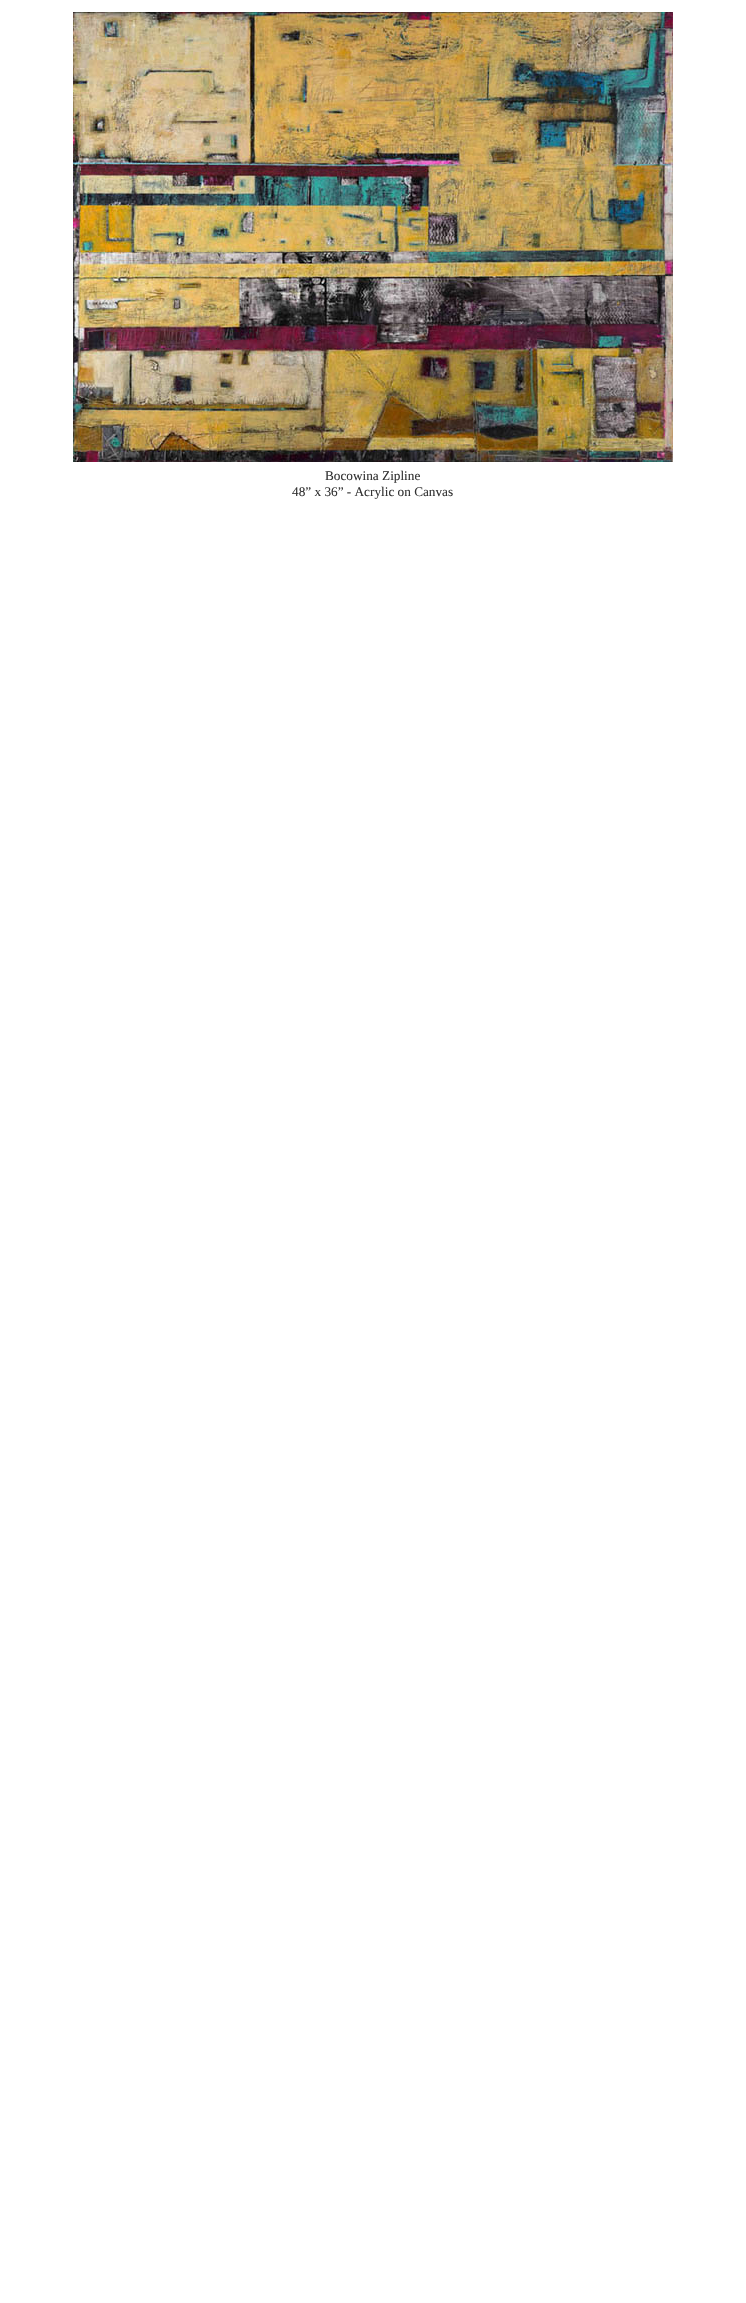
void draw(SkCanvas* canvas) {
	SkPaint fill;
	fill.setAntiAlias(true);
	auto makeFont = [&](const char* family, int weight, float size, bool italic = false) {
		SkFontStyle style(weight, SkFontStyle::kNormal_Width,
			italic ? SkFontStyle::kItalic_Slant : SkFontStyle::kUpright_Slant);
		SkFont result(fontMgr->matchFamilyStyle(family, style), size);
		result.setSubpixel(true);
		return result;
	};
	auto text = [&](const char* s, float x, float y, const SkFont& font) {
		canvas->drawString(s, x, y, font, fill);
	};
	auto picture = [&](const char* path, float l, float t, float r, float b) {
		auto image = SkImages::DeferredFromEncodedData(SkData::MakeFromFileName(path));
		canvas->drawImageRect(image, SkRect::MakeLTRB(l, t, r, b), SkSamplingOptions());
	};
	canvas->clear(0xFFFFFFFF);
	picture("image0.png", 73, 12, 673, 462);
	auto font1 = makeFont("Liberation Serif", 400, 13.25f);
	fill.setColor(0xFF333333);
	text("Bocowina Zipline", 325, 480, font1);
	text("48” x 36” - Acrylic on Canvas", 292, 496, font1);
}
